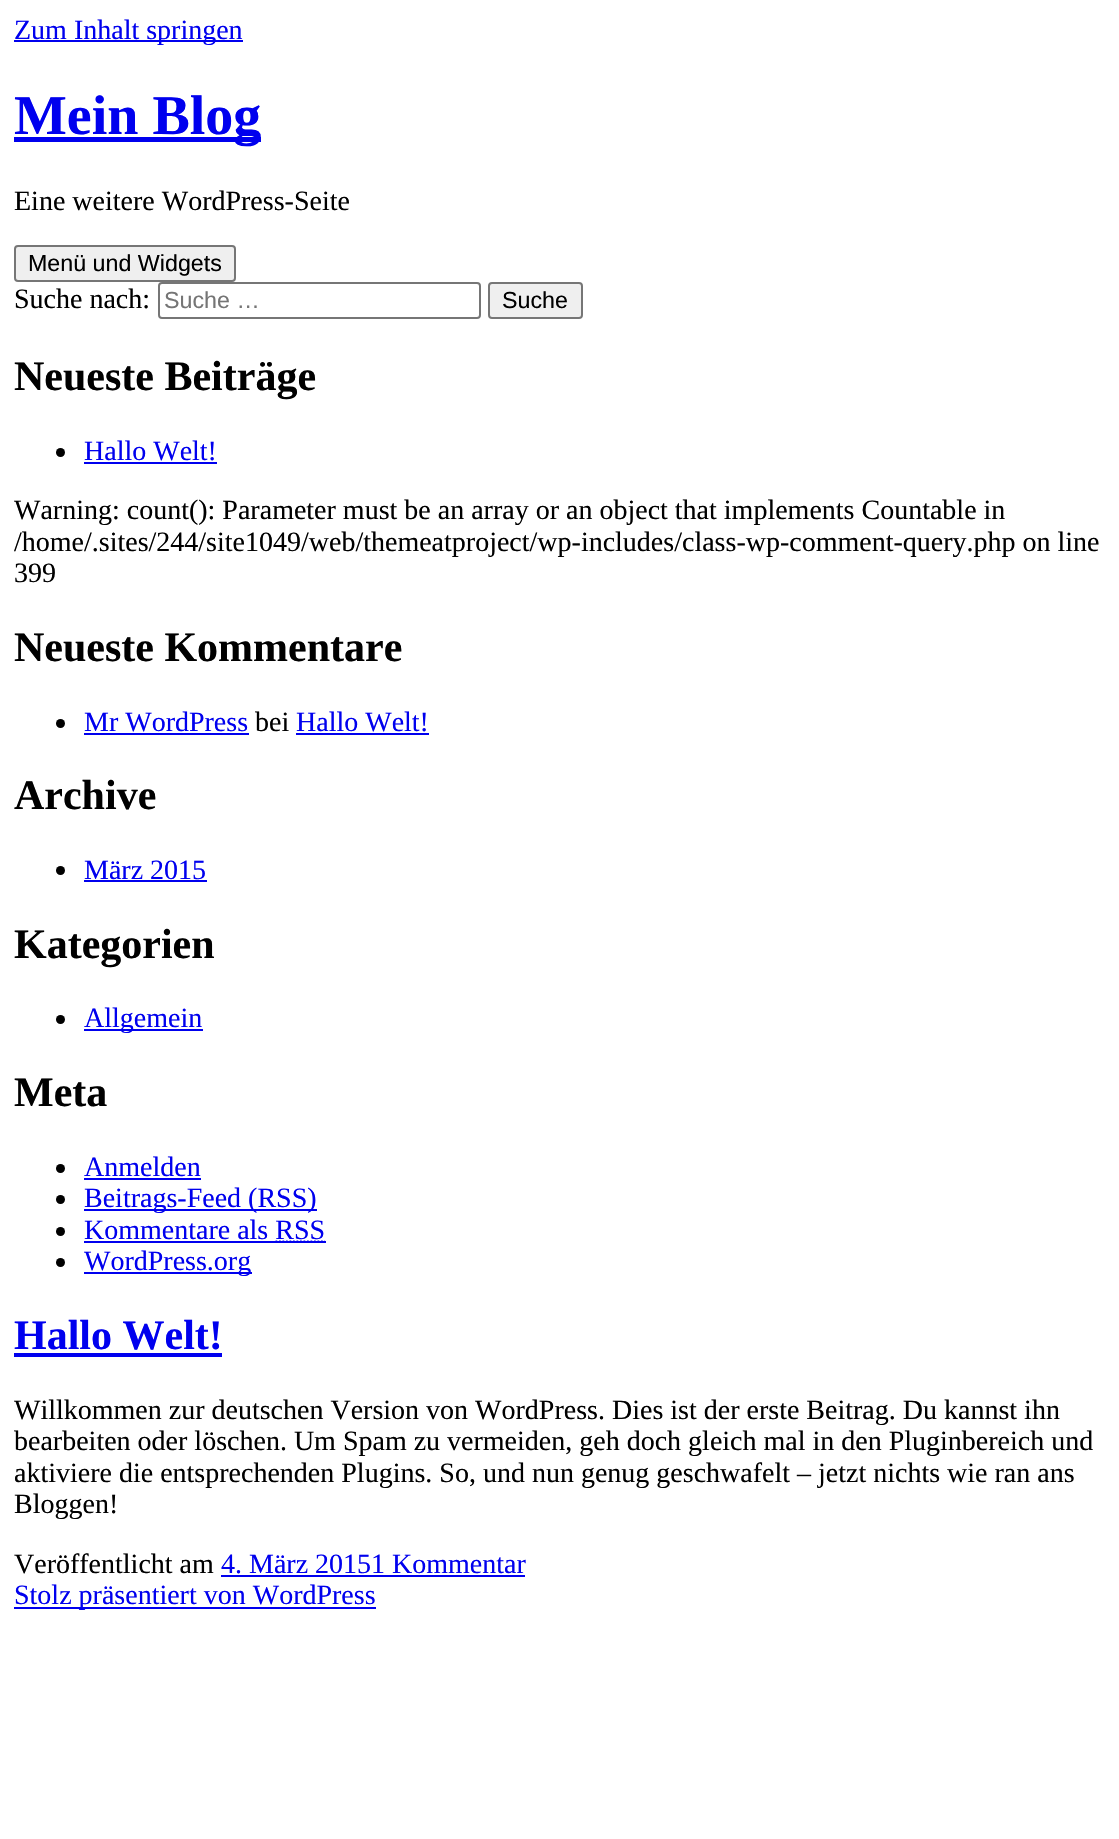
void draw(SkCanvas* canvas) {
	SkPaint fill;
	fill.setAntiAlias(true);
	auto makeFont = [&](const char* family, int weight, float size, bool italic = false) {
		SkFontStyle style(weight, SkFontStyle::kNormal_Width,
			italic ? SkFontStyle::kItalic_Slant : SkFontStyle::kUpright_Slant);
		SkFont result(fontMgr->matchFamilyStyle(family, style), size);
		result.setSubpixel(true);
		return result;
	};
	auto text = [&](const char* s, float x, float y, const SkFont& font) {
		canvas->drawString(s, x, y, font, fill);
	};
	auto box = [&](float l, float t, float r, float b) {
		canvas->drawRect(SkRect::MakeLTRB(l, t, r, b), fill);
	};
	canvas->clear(0xFFFFFFFF);
	fill.setColor(0xFF0000EE);
	box(14, 40, 243, 42);
	box(14, 137, 261, 142);
	fill.setColor(0xFFEFEFEF);
	canvas->drawRoundRect(SkRect::MakeLTRB(15, 246, 235, 281), 3, 3, fill);
	fill.setStyle(SkPaint::kStroke_Style);
	fill.setStrokeWidth(2);
	fill.setColor(0xFF767676);
	canvas->drawRoundRect(SkRect::MakeLTRB(15, 246, 235, 281), 3, 3, fill);
	canvas->drawRoundRect(SkRect::MakeLTRB(159, 283, 480, 318), 3, 3, fill);
	fill.setStyle(SkPaint::kFill_Style);
	fill.setColor(0xFFEFEFEF);
	canvas->drawRoundRect(SkRect::MakeLTRB(489, 283, 582, 318), 3, 3, fill);
	fill.setStyle(SkPaint::kStroke_Style);
	fill.setColor(0xFF767676);
	canvas->drawRoundRect(SkRect::MakeLTRB(489, 283, 582, 318), 3, 3, fill);
	fill.setStyle(SkPaint::kFill_Style);
	fill.setColor(0xFF000000);
	canvas->drawCircle(60.5f, 452.5f, 4.5f, fill);
	fill.setColor(0xFF0000EE);
	box(84, 462, 217, 464);
	fill.setColor(0xFF000000);
	canvas->drawCircle(60.5f, 723.5f, 4.5f, fill);
	fill.setColor(0xFF0000EE);
	box(84, 733, 249, 735);
	box(296, 733, 429, 735);
	fill.setColor(0xFF000000);
	canvas->drawCircle(60.5f, 870.5f, 4.5f, fill);
	fill.setColor(0xFF0000EE);
	box(84, 880, 207, 882);
	fill.setColor(0xFF000000);
	canvas->drawCircle(60.5f, 1019.5f, 4.5f, fill);
	fill.setColor(0xFF0000EE);
	box(84, 1029, 203, 1031);
	fill.setColor(0xFF000000);
	canvas->drawCircle(60.5f, 1168.5f, 4.5f, fill);
	fill.setColor(0xFF0000EE);
	box(84, 1178, 201, 1180);
	fill.setColor(0xFF000000);
	canvas->drawCircle(60.5f, 1199.5f, 4.5f, fill);
	fill.setColor(0xFF0000EE);
	box(84, 1209, 317, 1211);
	fill.setColor(0xFF000000);
	canvas->drawCircle(60.5f, 1231.5f, 4.5f, fill);
	fill.setColor(0xFF0000EE);
	box(84, 1241, 275, 1243);
	fill.setStyle(SkPaint::kStroke_Style);
	fill.setStrokeWidth(1.8f);
	fill.setPathEffect(SkDashPathEffect::Make({{1.75f, 1.75f}}, 0));
	canvas->drawPath(SkPathBuilder().moveTo(275.5f, 1241.5f).lineTo(325, 1241.5f).detach(), fill);
	fill.setPathEffect(nullptr);
	fill.setStyle(SkPaint::kFill_Style);
	box(275, 1241, 326, 1243);
	fill.setColor(0xFF000000);
	canvas->drawCircle(60.5f, 1262.5f, 4.5f, fill);
	fill.setColor(0xFF0000EE);
	box(84, 1272, 252, 1274);
	box(14, 1353, 222, 1357);
	box(221, 1575, 525, 1577);
	box(14, 1607, 376, 1609);
	auto font1 = makeFont("Liberation Serif", 400, 28);
	text("Zum Inhalt springen", 14, 39, font1);
	auto font2 = makeFont("Liberation Serif", 700, 56);
	text("Mein Blog", 14, 134, font2);
	fill.setColor(0xFF000000);
	text("Eine weitere WordPress-Seite", 14, 210, font1);
	auto font3 = makeFont("Liberation Sans", 400, 23.25f);
	text("Menü und Widgets", 28, 271, font3);
	text("Suche nach:", 14, 308, font1);
	fill.setColor(0xFF757575);
	text("Suche …", 164, 308, font3);
	fill.setColor(0xFF000000);
	text("Suche", 502, 308, font3);
	auto font4 = makeFont("Liberation Serif", 700, 42);
	text("Neueste Beiträge", 14, 390, font4);
	fill.setColor(0xFF0000EE);
	text("Hallo Welt!", 84, 460, font1);
	fill.setColor(0xFF000000);
	text("Warning: count(): Parameter must be an array or an object that implements Countable in", 14, 519, font1);
	text("/home/.sites/244/site1049/web/themeatproject/wp-includes/class-wp-comment-query.php on line", 14, 551, font1);
	text("399", 14, 582, font1);
	text("Neueste Kommentare", 14, 661, font4);
	fill.setColor(0xFF0000EE);
	text("Mr WordPress", 84, 731, font1);
	fill.setColor(0xFF000000);
	text("bei", 255, 731, font1);
	fill.setColor(0xFF0000EE);
	text("Hallo Welt!", 296, 731, font1);
	fill.setColor(0xFF000000);
	text("Archive", 14, 809, font4);
	fill.setColor(0xFF0000EE);
	text("März 2015", 84, 879, font1);
	fill.setColor(0xFF000000);
	text("Kategorien", 14, 958, font4);
	fill.setColor(0xFF0000EE);
	text("Allgemein", 84, 1027, font1);
	fill.setColor(0xFF000000);
	text("Meta", 14, 1106, font4);
	fill.setColor(0xFF0000EE);
	text("Anmelden", 84, 1176, font1);
	text("Beitrags-Feed (RSS)", 84, 1207, font1);
	text("Kommentare als RSS", 84, 1239, font1);
	text("WordPress.org", 84, 1270, font1);
	text("Hallo Welt!", 14, 1349, font4);
	fill.setColor(0xFF000000);
	text("Willkommen zur deutschen Version von WordPress. Dies ist der erste Beitrag. Du kannst ihn", 14, 1419, font1);
	text("bearbeiten oder löschen. Um Spam zu vermeiden, geh doch gleich mal in den Pluginbereich und", 14, 1450, font1);
	text("aktiviere die entsprechenden Plugins. So, und nun genug geschwafelt – jetzt nichts wie ran ans", 14, 1482, font1);
	text("Bloggen!", 14, 1513, font1);
	text("Veröffentlicht am", 14, 1573, font1);
	fill.setColor(0xFF0000EE);
	text("4. März 20151 Kommentar", 221, 1573, font1);
	text("Stolz präsentiert von WordPress", 14, 1604, font1);
}
